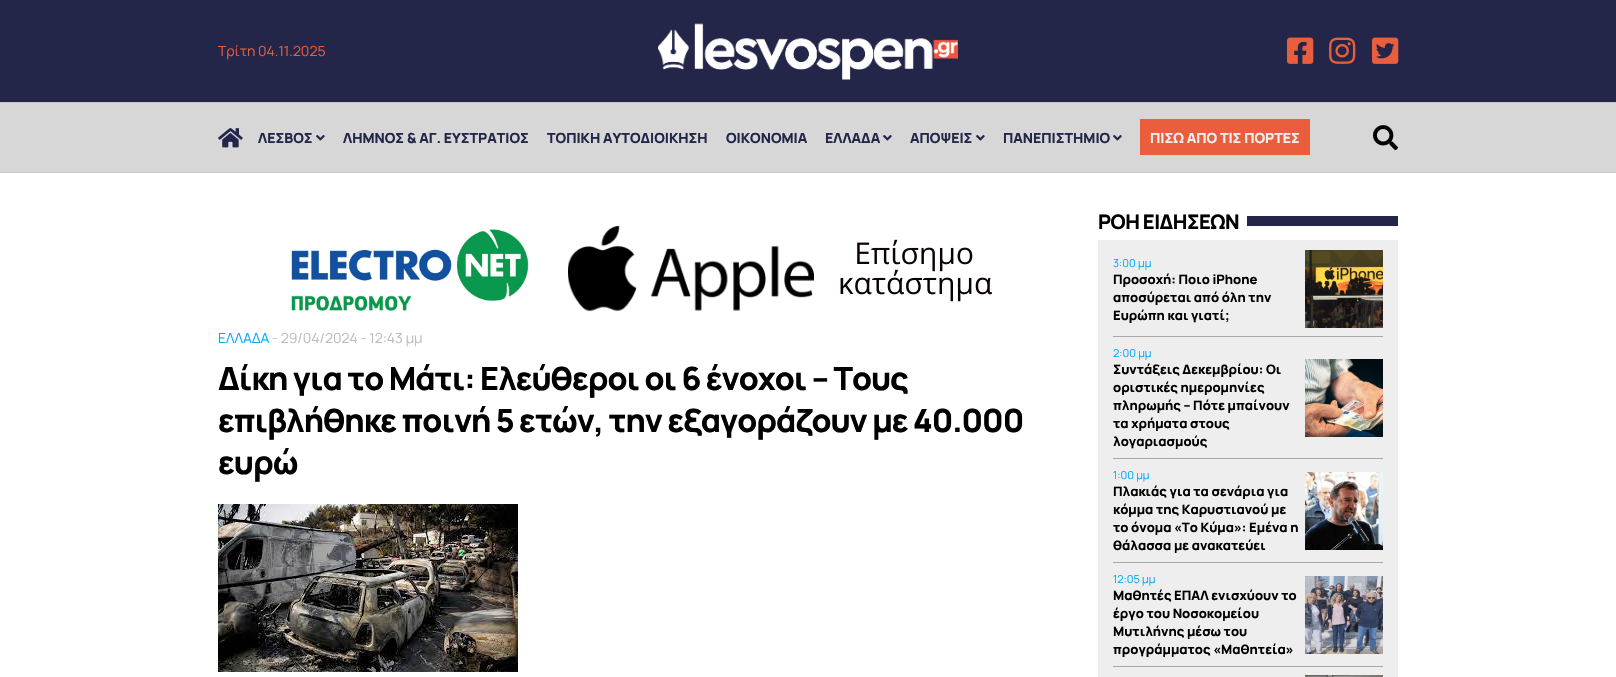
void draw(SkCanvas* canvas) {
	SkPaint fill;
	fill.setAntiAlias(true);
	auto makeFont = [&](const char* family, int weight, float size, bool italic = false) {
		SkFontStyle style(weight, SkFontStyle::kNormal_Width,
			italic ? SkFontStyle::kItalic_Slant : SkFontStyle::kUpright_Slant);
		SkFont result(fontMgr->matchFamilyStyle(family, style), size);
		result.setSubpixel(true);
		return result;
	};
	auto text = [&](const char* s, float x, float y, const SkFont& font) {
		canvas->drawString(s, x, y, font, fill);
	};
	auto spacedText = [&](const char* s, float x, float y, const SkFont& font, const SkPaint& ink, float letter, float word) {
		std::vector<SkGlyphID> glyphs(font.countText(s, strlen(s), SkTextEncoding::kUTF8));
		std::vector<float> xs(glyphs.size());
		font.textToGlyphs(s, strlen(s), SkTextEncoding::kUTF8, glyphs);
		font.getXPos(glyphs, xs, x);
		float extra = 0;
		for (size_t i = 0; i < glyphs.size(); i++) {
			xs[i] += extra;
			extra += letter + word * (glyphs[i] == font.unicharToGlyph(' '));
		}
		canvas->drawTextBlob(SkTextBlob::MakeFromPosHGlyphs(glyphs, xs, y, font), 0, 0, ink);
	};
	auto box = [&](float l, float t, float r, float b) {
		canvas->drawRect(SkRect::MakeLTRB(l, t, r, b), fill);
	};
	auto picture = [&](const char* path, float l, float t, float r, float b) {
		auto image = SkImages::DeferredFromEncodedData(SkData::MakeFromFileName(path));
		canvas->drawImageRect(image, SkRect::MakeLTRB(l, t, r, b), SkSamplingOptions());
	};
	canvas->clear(0xFFFFFFFF);
	fill.setColor(0xFF232649);
	box(0, 0, 1616, 102);
	picture("image0.png", 658, 23, 958, 80);
	picture("image1.png", 1287, 37, 1314, 64);
	picture("image2.png", 1329, 37, 1356, 64);
	picture("image3.png", 1372, 37, 1399, 64);
	fill.setColor(0xFFD7D7D7);
	box(0, 103, 1616, 172);
	fill.setColor(0xFFC6C6C6);
	box(0, 102, 1616, 103);
	box(0, 172, 1616, 173);
	picture("image4.png", 218, 128, 243, 148);
	picture("image5.png", 316, 135, 325, 141);
	picture("image5.png", 883, 135, 892, 141);
	picture("image5.png", 976, 135, 985, 141);
	picture("image5.png", 1113, 135, 1122, 141);
	fill.setColor(0xFFEA5D3D);
	box(1140, 119, 1310, 155);
	picture("image6.png", 1373, 125, 1398, 151);
	picture("image7.png", 289, 226, 992, 312);
	picture("image8.png", 218, 504, 518, 672);
	fill.setColor(0xFF232649);
	box(1247, 216, 1398, 226);
	fill.setColor(0xFFEEEEEE);
	box(1098, 240, 1398, 677);
	fill.setColor(0xFFA8A8A8);
	box(1113, 336, 1383, 337);
	picture("image9.png", 1305, 250, 1383, 328);
	box(1113, 458, 1383, 459);
	picture("image10.png", 1305, 359, 1383, 437);
	box(1113, 562, 1383, 563);
	picture("image11.png", 1305, 472, 1383, 550);
	box(1113, 666, 1383, 667);
	picture("image12.png", 1305, 576, 1383, 654);
	picture("image13.png", 1305, 675, 1383, 677);
	auto font1 = makeFont("Manrope", 400, 14);
	fill.setColor(0xFFEA5D3D);
	text("Τρίτη 04.11.2025", 218, 56, font1);
	auto font2 = makeFont("Manrope", 800, 14);
	fill.setColor(0xFF232649);
	text("ΛΕΣΒΟΣ", 258, 143, font2);
	text("ΛΗΜΝΟΣ & ΑΓ. ΕΥΣΤΡΑΤΙΟΣ", 343, 143, font2);
	text("ΤΟΠΙΚΗ ΑΥΤΟΔΙΟΙΚΗΣΗ", 547, 143, font2);
	text("ΟΙΚΟΝΟΜΙΑ", 726, 143, font2);
	text("ΕΛΛΑΔΑ", 825, 143, font2);
	text("ΑΠΟΨΕΙΣ", 910, 143, font2);
	text("ΠΑΝΕΠΙΣΤΗΜΙΟ", 1003, 143, font2);
	fill.setColor(0xFFEFEFEF);
	text("ΠΙΣΩ ΑΠΟ ΤΙΣ ΠΟΡΤΕΣ", 1150, 143, font2);
	fill.setColor(0xFF03A9F7);
	text("ΕΛΛΑΔΑ", 218, 343, font1);
	fill.setColor(0xFFBDBDBD);
	text("- 29/04/2024 - 12:43 μμ", 272, 343, font1);
	auto font3 = makeFont("Manrope", 800, 32);
	fill.setColor(0xFF000000);
	spacedText("Δίκη για το Μάτι: Ελεύθεροι οι 6 ένοχοι – Τους", 218, 390, font3, fill, -1, 0);
	spacedText("επιβλήθηκε ποινή 5 ετών, την εξαγοράζουν με 40.000", 218, 432, font3, fill, -1, 0);
	spacedText("ευρώ", 218, 474, font3, fill, -1, 0);
	auto font4 = makeFont("Manrope", 800, 20);
	spacedText("ΡΟΗ ΕΙΔΗΣΕΩΝ", 1098, 229, font4, fill, -0.5f, 0);
	auto font5 = makeFont("Manrope", 400, 11);
	fill.setColor(0xFF03A9F7);
	text("3:00 μμ", 1113, 267, font5);
	auto font6 = makeFont("Manrope", 800, 13);
	fill.setColor(0xFF000000);
	text("Προσοχή: Ποιο iPhone", 1113, 284, font6);
	text("αποσύρεται από όλη την", 1113, 302, font6);
	text("Ευρώπη και γιατί;", 1113, 320, font6);
	fill.setColor(0xFF03A9F7);
	text("2:00 μμ", 1113, 357, font5);
	fill.setColor(0xFF000000);
	text("Συντάξεις Δεκεμβρίου: Οι", 1113, 374, font6);
	text("οριστικές ημερομηνίες", 1113, 392, font6);
	text("πληρωμής – Πότε μπαίνουν", 1113, 410, font6);
	text("τα χρήματα στους", 1113, 428, font6);
	text("λογαριασμούς", 1113, 446, font6);
	fill.setColor(0xFF03A9F7);
	text("1:00 μμ", 1113, 479, font5);
	fill.setColor(0xFF000000);
	text("Πλακιάς για τα σενάρια για", 1113, 496, font6);
	text("κόμμα της Καρυστιανού με", 1113, 514, font6);
	text("το όνομα «Το Κύμα»: Εμένα η", 1113, 532, font6);
	text("θάλασσα με ανακατεύει", 1113, 550, font6);
	fill.setColor(0xFF03A9F7);
	text("12:05 μμ", 1113, 583, font5);
	fill.setColor(0xFF000000);
	text("Μαθητές ΕΠΑΛ ενισχύουν το", 1113, 600, font6);
	text("έργο του Νοσοκομείου", 1113, 618, font6);
	text("Μυτιλήνης μέσω του", 1113, 636, font6);
	text("προγράμματος «Μαθητεία»", 1113, 654, font6);
}
